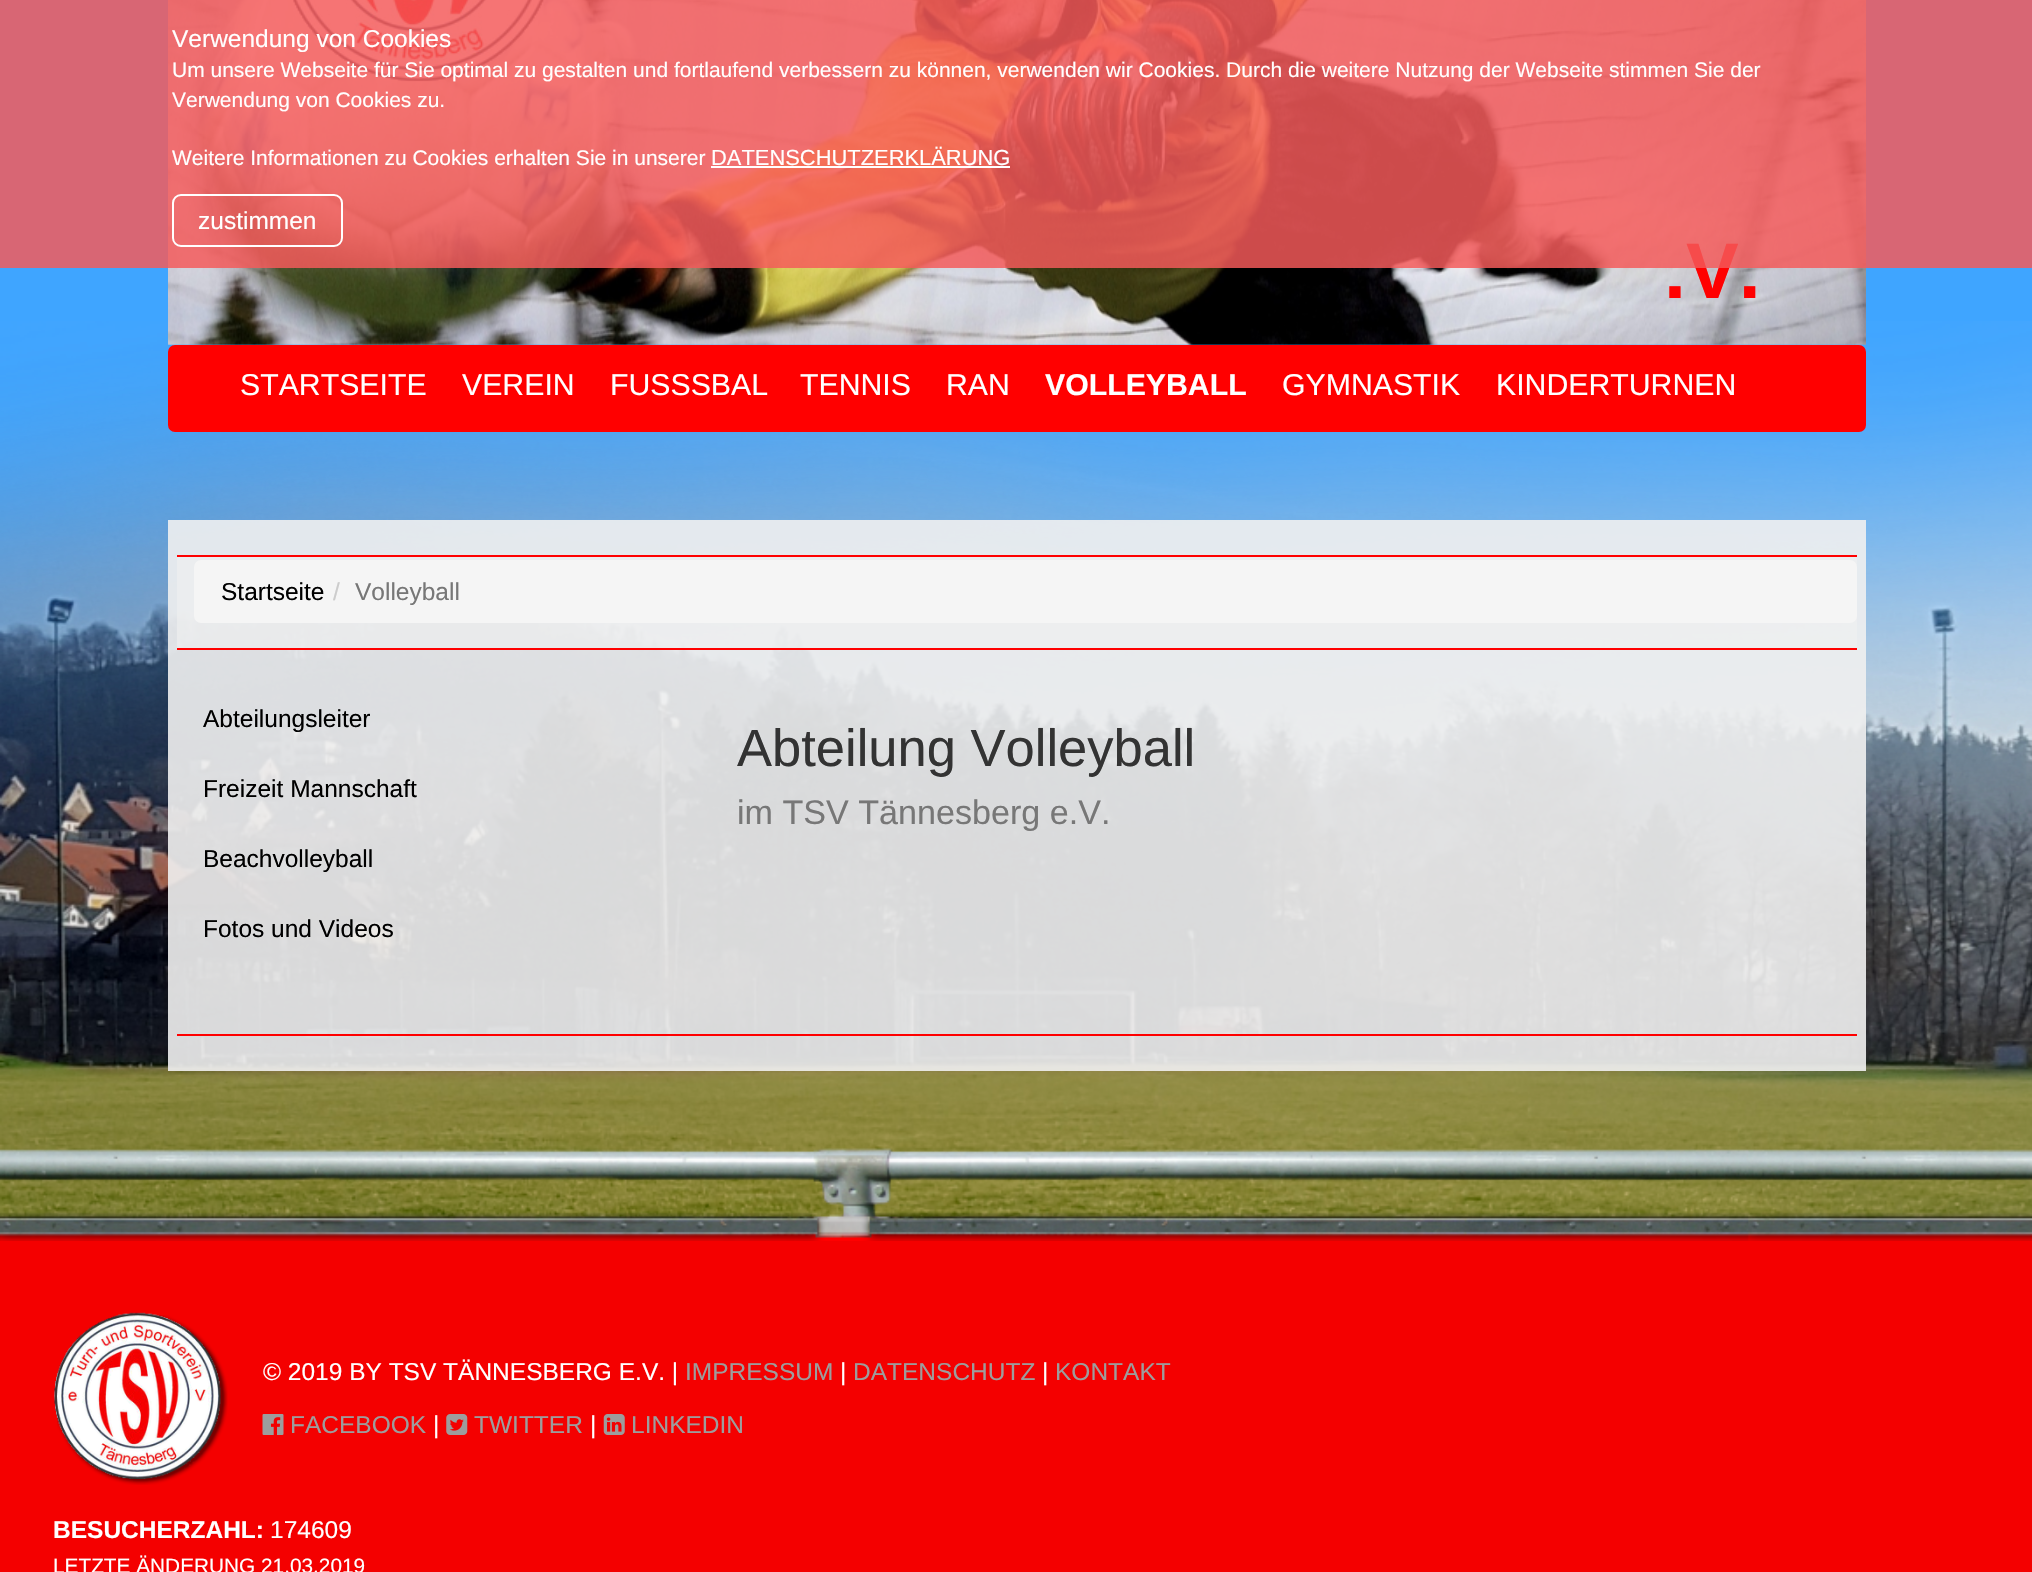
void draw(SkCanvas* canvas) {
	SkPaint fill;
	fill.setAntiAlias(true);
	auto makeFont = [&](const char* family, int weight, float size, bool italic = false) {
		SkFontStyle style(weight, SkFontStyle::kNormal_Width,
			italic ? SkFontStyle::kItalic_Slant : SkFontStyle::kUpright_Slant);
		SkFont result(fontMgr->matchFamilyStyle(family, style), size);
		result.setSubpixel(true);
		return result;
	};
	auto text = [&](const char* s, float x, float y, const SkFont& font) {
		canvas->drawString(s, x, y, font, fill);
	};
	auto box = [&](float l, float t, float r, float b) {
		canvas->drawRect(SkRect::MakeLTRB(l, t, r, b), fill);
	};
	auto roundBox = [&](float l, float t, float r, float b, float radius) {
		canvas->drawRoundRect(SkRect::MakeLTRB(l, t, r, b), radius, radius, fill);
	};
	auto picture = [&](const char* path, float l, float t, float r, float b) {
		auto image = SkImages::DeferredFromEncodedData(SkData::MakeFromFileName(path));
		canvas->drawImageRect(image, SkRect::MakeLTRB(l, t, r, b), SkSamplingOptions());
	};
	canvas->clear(0xFF3FA5FF);
	picture("image0.png", 0, 321, 2032, 1221);
	fill.setColor(0xFFFF0000);
	canvas->drawRoundRect(SkRect::MakeLTRB(169, 346, 1865, 431), 6, 6, fill);
	fill.setStyle(SkPaint::kStroke_Style);
	fill.setStrokeWidth(2);
	canvas->drawRoundRect(SkRect::MakeLTRB(169, 346, 1865, 431), 6, 6, fill);
	picture("image1.png", 168, 0, 1866, 345);
	picture("image2.png", 293, 0, 544, 82);
	fill.setStyle(SkPaint::kFill_Style);
	fill.setColor(0xE6F0F0F0);
	box(168, 520, 1866, 1071);
	fill.setColor(0x99F0F0F0);
	box(177, 557, 1857, 648);
	fill.setColor(0xFFFF0000);
	box(177, 555, 1857, 557);
	box(177, 648, 1857, 650);
	fill.setColor(0xFFF5F5F5);
	roundBox(194, 560, 1857, 623, 7);
	fill.setColor(0xFFFF0000);
	box(177, 1034, 1857, 1036);
	picture("image3.png", 0, 1148, 2032, 1241);
	fill.setColor(0xFFF40000);
	box(0, 1241, 2032, 1572);
	picture("image4.png", 54, 1312, 228, 1485);
	picture("image5.png", 262, 1414, 284, 1435);
	picture("image6.png", 446, 1414, 468, 1435);
	picture("image7.png", 603, 1414, 625, 1435);
	auto font1 = makeFont("Liberation Sans", 400, 30.25f);
	fill.setColor(0xFFFFFFFF);
	text("STARTSEITE", 240, 395, font1);
	text("VEREIN", 462, 395, font1);
	text("FUSSSBAL", 610, 395, font1);
	text("TENNIS", 800, 395, font1);
	text("RAN", 946, 395, font1);
	auto font2 = makeFont("Liberation Sans", 700, 30.25f);
	text("VOLLEYBALL", 1045, 395, font2);
	text("GYMNASTIK", 1282, 395, font1);
	text("KINDERTURNEN", 1496, 395, font1);
	auto font3 = makeFont("Liberation Sans", 700, 79);
	fill.setColor(0xFFFF0000);
	text(".V.", 1664, 298, font3);
	fill.setColor(0xD6F45959);
	box(0, 0, 2032, 268);
	fill.setStyle(SkPaint::kStroke_Style);
	fill.setColor(0xFFFFFFFF);
	canvas->drawRoundRect(SkRect::MakeLTRB(173, 195, 342, 246), 8, 8, fill);
	auto font4 = makeFont("Liberation Sans", 400, 24.5f);
	fill.setStyle(SkPaint::kFill_Style);
	text("zustimmen", 198, 229, font4);
	auto font5 = makeFont("Liberation Sans", 400, 21.9f);
	text("DATENSCHUTZERKLÄRUNG", 711, 165, font5);
	box(711, 166, 1010, 168);
	auto font6 = makeFont("Liberation Sans", 400, 21);
	text("Weitere Informationen zu Cookies erhalten Sie in unserer", 172, 165, font6);
	text("Verwendung von Cookies zu.", 172, 107, font6);
	text("Um unsere Webseite für Sie optimal zu gestalten und fortlaufend verbessern zu können, verwenden wir Cookies. Durch die weitere Nutzung der Webseite stimmen Sie der", 172, 77, font6);
	text("Verwendung von Cookies", 172, 47, font4);
	fill.setColor(0xFF000000);
	text("Startseite", 221, 600, font4);
	fill.setColor(0xFFCCCCCC);
	text("/", 333, 600, font4);
	fill.setColor(0xFF777777);
	text("Volleyball", 355, 600, font4);
	fill.setColor(0xFF000000);
	text("Abteilungsleiter", 203, 727, font4);
	text("Freizeit Mannschaft", 203, 797, font4);
	text("Beachvolleyball", 203, 867, font4);
	text("Fotos und Videos", 203, 937, font4);
	auto font7 = makeFont("Liberation Sans", 400, 52.5f);
	fill.setColor(0xFF333333);
	text("Abteilung Volleyball", 737, 766, font7);
	auto font8 = makeFont("Liberation Sans", 400, 34.1f);
	fill.setColor(0xFF777777);
	text("im TSV Tännesberg e.V.", 737, 824, font8);
	fill.setColor(0xFFFFFFFF);
	text("© 2019 BY TSV TÄNNESBERG E.V. |", 263, 1380, font4);
	fill.setColor(0xFF9D9D9D);
	text("IMPRESSUM", 685, 1380, font4);
	fill.setColor(0xFFFFFFFF);
	text("|", 840, 1380, font4);
	fill.setColor(0xFF9D9D9D);
	text("DATENSCHUTZ", 853, 1380, font4);
	fill.setColor(0xFFFFFFFF);
	text("|", 1042, 1380, font4);
	fill.setColor(0xFF9D9D9D);
	text("KONTAKT", 1055, 1380, font4);
	text("FACEBOOK", 290, 1433, font4);
	fill.setColor(0xFFFFFFFF);
	text("|", 433, 1433, font4);
	fill.setColor(0xFF9D9D9D);
	text("TWITTER", 474, 1433, font4);
	fill.setColor(0xFFFFFFFF);
	text("|", 590, 1433, font4);
	fill.setColor(0xFF9D9D9D);
	text("LINKEDIN", 631, 1433, font4);
	auto font9 = makeFont("Liberation Sans", 700, 24.5f);
	fill.setColor(0xFFFFFFFF);
	text("BESUCHERZAHL:", 53, 1538, font9);
	text("174609", 270, 1538, font4);
	auto font10 = makeFont("Liberation Sans", 400, 20.8f);
	text("LETZTE ÄNDERUNG 21.03.2019", 53, 1573, font10);
}
